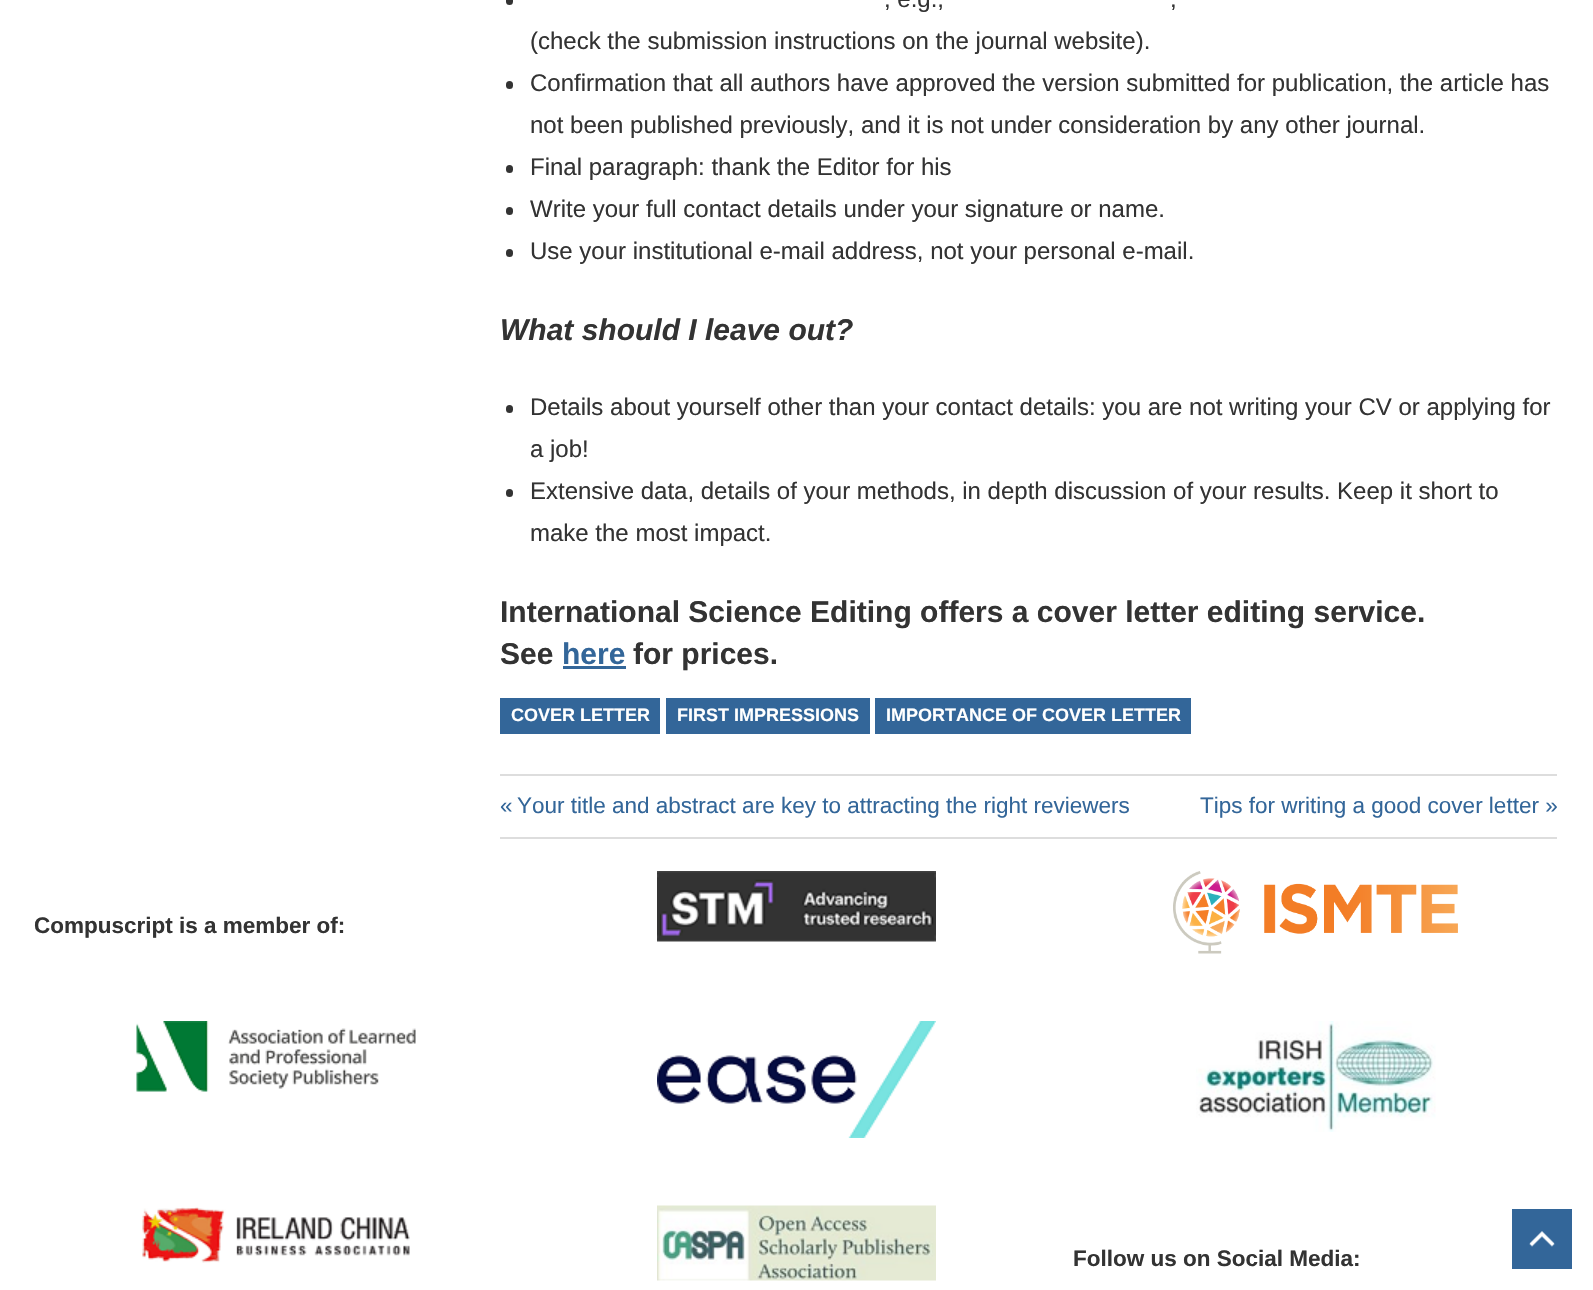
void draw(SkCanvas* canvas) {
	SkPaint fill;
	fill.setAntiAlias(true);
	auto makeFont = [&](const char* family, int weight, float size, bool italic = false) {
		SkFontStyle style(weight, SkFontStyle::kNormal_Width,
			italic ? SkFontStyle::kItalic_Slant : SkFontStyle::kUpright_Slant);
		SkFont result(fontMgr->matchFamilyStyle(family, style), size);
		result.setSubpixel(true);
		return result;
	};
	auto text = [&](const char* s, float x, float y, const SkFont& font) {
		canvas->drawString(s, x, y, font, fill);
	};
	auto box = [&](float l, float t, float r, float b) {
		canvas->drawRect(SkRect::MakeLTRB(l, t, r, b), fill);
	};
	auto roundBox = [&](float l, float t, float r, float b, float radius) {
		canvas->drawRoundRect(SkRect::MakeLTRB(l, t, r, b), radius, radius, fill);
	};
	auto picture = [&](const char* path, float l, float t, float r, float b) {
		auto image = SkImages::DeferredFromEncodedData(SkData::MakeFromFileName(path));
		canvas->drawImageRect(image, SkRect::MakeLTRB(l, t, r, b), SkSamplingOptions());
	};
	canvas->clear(0xFFFFFFFF);
	fill.setColor(0xFF333333);
	roundBox(506, -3, 513, 5, 3.5f);
	roundBox(506, 81, 513, 89, 3.5f);
	roundBox(506, 165, 513, 173, 3.5f);
	roundBox(506, 207, 513, 215, 3.5f);
	roundBox(506, 249, 513, 257, 3.5f);
	roundBox(506, 405, 513, 413, 3.5f);
	roundBox(506, 489, 513, 497, 3.5f);
	fill.setColor(0xFF336699);
	box(563, 666, 626, 669);
	box(500, 698, 660, 734);
	box(666, 698, 870, 734);
	box(875, 698, 1191, 734);
	fill.setColor(0xFFDDDDDD);
	box(500, 774, 1557, 776);
	box(500, 837, 1557, 839);
	picture("image0.png", 657, 871, 936, 942);
	picture("image1.png", 1173, 871, 1458, 954);
	picture("image2.png", 136, 1021, 416, 1092);
	picture("image3.png", 657, 1021, 936, 1138);
	picture("image4.png", 1196, 1021, 1436, 1132);
	picture("image5.png", 142, 1207, 410, 1263);
	picture("image6.png", 657, 1205, 936, 1281);
	fill.setColor(0xFF336699);
	box(1512, 1209, 1572, 1269);
	picture("image7.png", 1529, 1231, 1555, 1247);
	auto font1 = makeFont("Liberation Sans", 400, 24);
	fill.setColor(0xFF333333);
	text(", e.g.,", 884, 7, font1);
	text(",", 1170, 7, font1);
	text("(check the submission instructions on the journal website).", 530, 49, font1);
	text("Confirmation that all authors have approved the version submitted for publication, the article has", 530, 91, font1);
	text("not been published previously, and it is not under consideration by any other journal.", 530, 133, font1);
	text("Final paragraph: thank the Editor for his", 530, 175, font1);
	text("Write your full contact details under your signature or name.", 530, 217, font1);
	text("Use your institutional e-mail address, not your personal e-mail.", 530, 259, font1);
	auto font2 = makeFont("Liberation Sans", 700, 30, true);
	text("What should I leave out?", 500, 340, font2);
	text("Details about yourself other than your contact details: you are not writing your CV or applying for", 530, 415, font1);
	text("a job!", 530, 457, font1);
	text("Extensive data, details of your methods, in depth discussion of your results. Keep it short to", 530, 499, font1);
	text("make the most impact.", 530, 541, font1);
	auto font3 = makeFont("Liberation Sans", 700, 30);
	text("International Science Editing offers a cover letter editing service.", 500, 622, font3);
	text("See", 500, 664, font3);
	fill.setColor(0xFF336699);
	text("here", 562, 664, font3);
	fill.setColor(0xFF333333);
	text("for prices.", 633, 664, font3);
	auto font4 = makeFont("Liberation Sans", 700, 18);
	fill.setColor(0xFFFFFFFF);
	text("COVER LETTER", 511, 721, font4);
	text("FIRST IMPRESSIONS", 677, 721, font4);
	text("IMPORTANCE OF COVER LETTER", 886, 721, font4);
	auto font5 = makeFont("Liberation Sans", 400, 22.5f);
	fill.setColor(0xFF336699);
	text("«", 500, 813, font5);
	text("Your title and abstract are key to attracting the right reviewers", 517, 813, font5);
	text("Tips for writing a good cover letter »", 1200, 813, font5);
	auto font6 = makeFont("Liberation Sans", 700, 22.5f);
	fill.setColor(0xFF333333);
	text("Compuscript is a member of:", 34, 933, font6);
	text("Follow us on Social Media:", 1073, 1266, font6);
}
